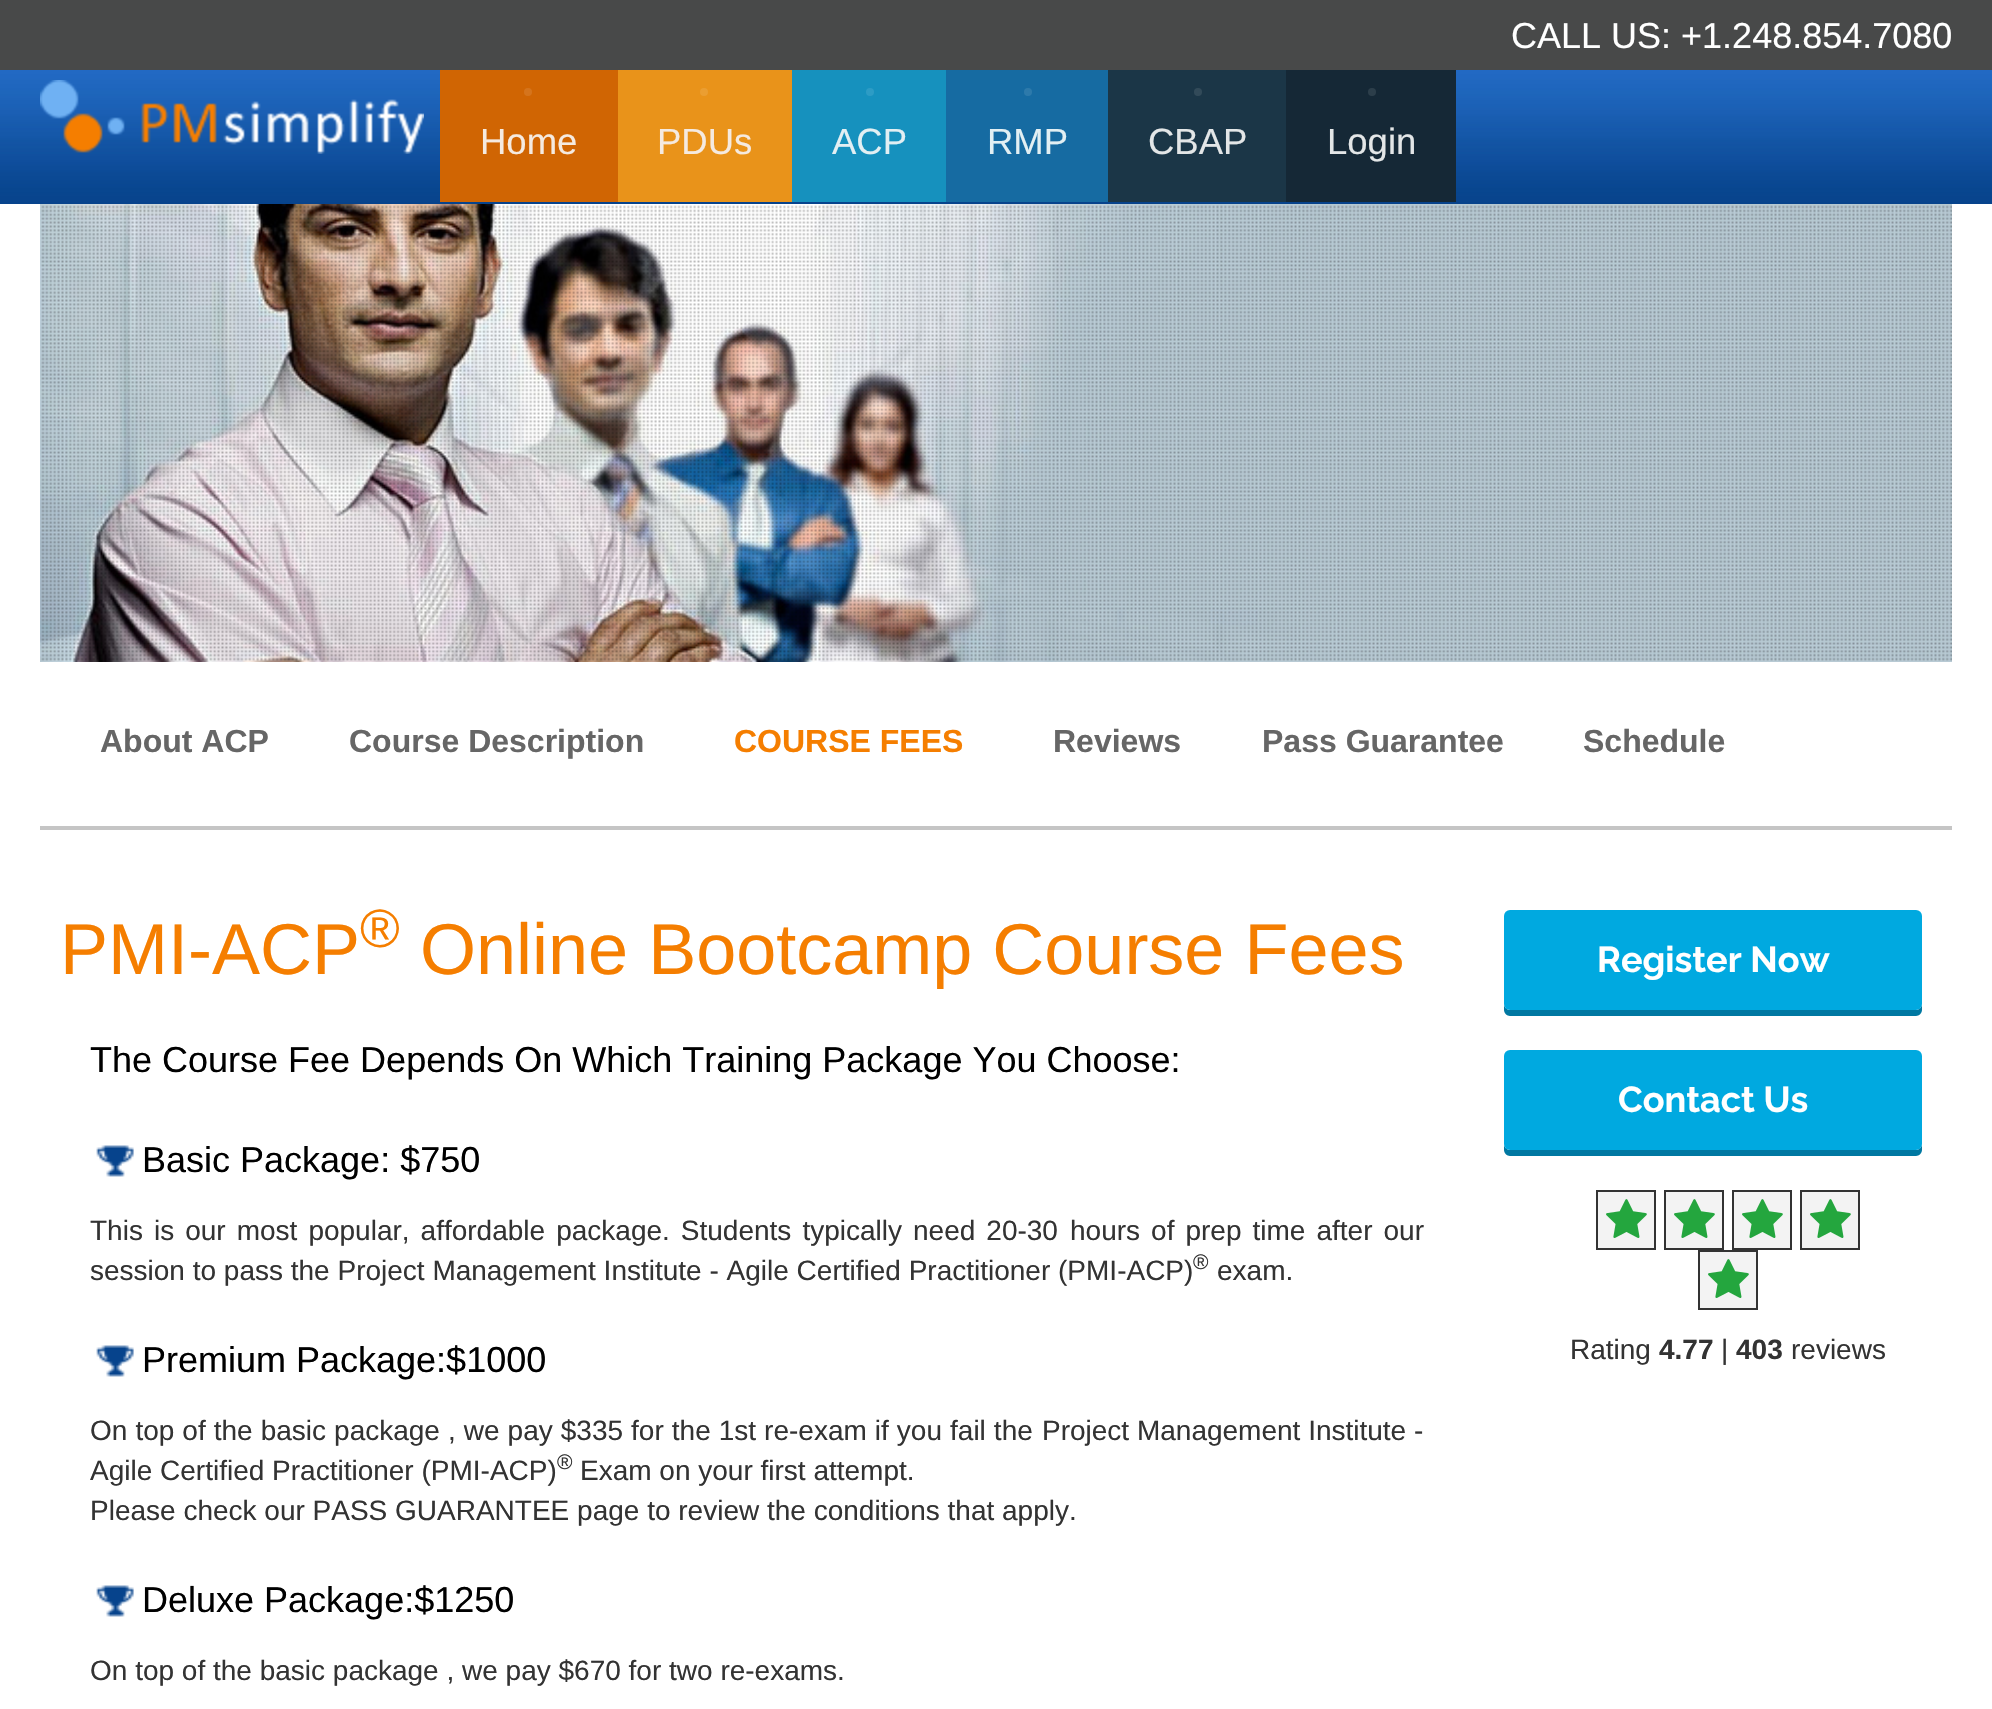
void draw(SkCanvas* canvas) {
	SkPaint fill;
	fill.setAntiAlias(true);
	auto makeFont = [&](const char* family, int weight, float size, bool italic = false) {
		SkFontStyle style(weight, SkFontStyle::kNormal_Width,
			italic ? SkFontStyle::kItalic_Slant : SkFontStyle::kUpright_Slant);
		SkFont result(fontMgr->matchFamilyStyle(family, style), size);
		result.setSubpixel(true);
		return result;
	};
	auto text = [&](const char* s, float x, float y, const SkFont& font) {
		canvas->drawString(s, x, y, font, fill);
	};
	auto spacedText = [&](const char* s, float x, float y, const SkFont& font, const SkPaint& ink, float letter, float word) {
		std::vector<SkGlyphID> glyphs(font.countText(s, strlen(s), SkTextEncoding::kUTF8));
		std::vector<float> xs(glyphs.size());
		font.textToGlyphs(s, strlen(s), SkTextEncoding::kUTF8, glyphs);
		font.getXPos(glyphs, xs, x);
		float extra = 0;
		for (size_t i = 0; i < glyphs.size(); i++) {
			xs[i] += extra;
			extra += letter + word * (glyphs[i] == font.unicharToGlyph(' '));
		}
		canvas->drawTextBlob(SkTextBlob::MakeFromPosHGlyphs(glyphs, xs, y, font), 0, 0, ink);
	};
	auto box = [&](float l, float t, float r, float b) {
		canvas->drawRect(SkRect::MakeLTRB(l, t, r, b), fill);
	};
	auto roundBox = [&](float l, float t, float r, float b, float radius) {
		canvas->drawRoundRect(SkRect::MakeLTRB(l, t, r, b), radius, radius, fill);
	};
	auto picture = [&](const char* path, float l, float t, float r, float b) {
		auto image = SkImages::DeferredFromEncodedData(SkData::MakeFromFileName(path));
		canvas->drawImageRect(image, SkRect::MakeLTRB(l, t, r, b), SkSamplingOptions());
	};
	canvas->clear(0xFFFFFFFF);
	fill.setColor(0xFF484949);
	box(0, 0, 1992, 70);
	picture("image0.png", 0, 70, 1992, 204);
	picture("image1.png", 40, 80, 424, 154);
	fill.setColor(0xFFD06503);
	box(440, 70, 618, 202);
	fill.setColor(0xFFD5741C);
	canvas->drawCircle(528, 92, 4, fill);
	fill.setColor(0xFFE9931A);
	box(618, 70, 792, 202);
	fill.setColor(0xFFEB9E31);
	canvas->drawCircle(704, 92, 4, fill);
	fill.setColor(0xFF1691BE);
	box(792, 70, 946, 202);
	fill.setColor(0xFF2D9CC5);
	canvas->drawCircle(870, 92, 4, fill);
	fill.setColor(0xFF166BA2);
	box(946, 70, 1108, 202);
	fill.setColor(0xFF2D7AAB);
	canvas->drawCircle(1028, 92, 4, fill);
	fill.setColor(0xFF1B3647);
	box(1108, 70, 1286, 202);
	fill.setColor(0xFF324A59);
	canvas->drawCircle(1198, 92, 4, fill);
	fill.setColor(0xFF152836);
	box(1286, 70, 1456, 202);
	fill.setColor(0xFF2C3E4A);
	canvas->drawCircle(1372, 92, 4, fill);
	picture("image2.png", 40, 204, 1952, 662);
	fill.setColor(0xFFC5C5C5);
	box(40, 826, 1952, 830);
	picture("image3.png", 96, 1145, 134, 1177);
	picture("image3.png", 96, 1345, 134, 1377);
	picture("image3.png", 96, 1585, 134, 1617);
	fill.setColor(0xFF0078A2);
	canvas->drawPath(SkPathBuilder().moveTo(1504, 1004).lineTo(1504, 1010).cubicTo(1504, 1013, 1507, 1016, 1510, 1016).lineTo(1916, 1016).cubicTo(1919, 1016, 1922, 1013, 1922, 1010).lineTo(1922, 1004).cubicTo(1922, 1007, 1919, 1010, 1916, 1010).lineTo(1510, 1010).cubicTo(1507, 1010, 1504, 1007, 1504, 1004).close().detach(), fill);
	fill.setColor(0xFF00A9E0);
	roundBox(1504, 910, 1922, 1010, 6);
	fill.setColor(0xFF0078A2);
	canvas->drawPath(SkPathBuilder().moveTo(1504, 1144).lineTo(1504, 1150).cubicTo(1504, 1153, 1507, 1156, 1510, 1156).lineTo(1916, 1156).cubicTo(1919, 1156, 1922, 1153, 1922, 1150).lineTo(1922, 1144).cubicTo(1922, 1147, 1919, 1150, 1916, 1150).lineTo(1510, 1150).cubicTo(1507, 1150, 1504, 1147, 1504, 1144).close().detach(), fill);
	fill.setColor(0xFF00A9E0);
	roundBox(1504, 1050, 1922, 1150, 6);
	fill.setColor(0xFFF3F3F3);
	canvas->drawRect(SkRect::MakeLTRB(1597, 1191, 1655, 1249), fill);
	fill.setStyle(SkPaint::kStroke_Style);
	fill.setStrokeWidth(2);
	fill.setColor(0xFF333333);
	canvas->drawRect(SkRect::MakeLTRB(1597, 1191, 1655, 1249), fill);
	picture("image4.png", 1606, 1199, 1647, 1238);
	fill.setStyle(SkPaint::kFill_Style);
	fill.setColor(0xFFF3F3F3);
	canvas->drawRect(SkRect::MakeLTRB(1665, 1191, 1723, 1249), fill);
	fill.setStyle(SkPaint::kStroke_Style);
	fill.setColor(0xFF333333);
	canvas->drawRect(SkRect::MakeLTRB(1665, 1191, 1723, 1249), fill);
	picture("image4.png", 1674, 1199, 1715, 1238);
	fill.setStyle(SkPaint::kFill_Style);
	fill.setColor(0xFFF3F3F3);
	canvas->drawRect(SkRect::MakeLTRB(1733, 1191, 1791, 1249), fill);
	fill.setStyle(SkPaint::kStroke_Style);
	fill.setColor(0xFF333333);
	canvas->drawRect(SkRect::MakeLTRB(1733, 1191, 1791, 1249), fill);
	picture("image4.png", 1742, 1199, 1783, 1238);
	fill.setStyle(SkPaint::kFill_Style);
	fill.setColor(0xFFF3F3F3);
	canvas->drawRect(SkRect::MakeLTRB(1801, 1191, 1859, 1249), fill);
	fill.setStyle(SkPaint::kStroke_Style);
	fill.setColor(0xFF333333);
	canvas->drawRect(SkRect::MakeLTRB(1801, 1191, 1859, 1249), fill);
	picture("image4.png", 1810, 1199, 1851, 1238);
	fill.setStyle(SkPaint::kFill_Style);
	fill.setColor(0xFFF3F3F3);
	canvas->drawRect(SkRect::MakeLTRB(1699, 1251, 1757, 1309), fill);
	fill.setStyle(SkPaint::kStroke_Style);
	fill.setColor(0xFF333333);
	canvas->drawRect(SkRect::MakeLTRB(1699, 1251, 1757, 1309), fill);
	picture("image4.png", 1708, 1259, 1749, 1298);
	auto font1 = makeFont("Liberation Sans", 400, 36);
	fill.setStyle(SkPaint::kFill_Style);
	fill.setColor(0xFFFFFFFF);
	text("CALL US: +1.248.854.7080", 1511, 48, font1);
	auto font2 = makeFont("Liberation Sans", 400, 36.5f);
	fill.setColor(0xFFF5EAE0);
	text("Home", 480, 154, font2);
	text("PDUs", 657, 154, font2);
	fill.setColor(0xFFE2EFF3);
	text("ACP", 832, 154, font2);
	text("RMP", 987, 154, font2);
	fill.setColor(0xFFE3E6E7);
	text("CBAP", 1148, 154, font2);
	text("Login", 1327, 154, font2);
	auto font3 = makeFont("Liberation Sans", 700, 32);
	fill.setColor(0xFF666666);
	text("About ACP", 100, 752, font3);
	text("Course Description", 349, 752, font3);
	fill.setColor(0xFFF57E00);
	text("COURSE FEES", 734, 752, font3);
	fill.setColor(0xFF666666);
	text("Reviews", 1053, 752, font3);
	text("Pass Guarantee", 1262, 752, font3);
	text("Schedule", 1583, 752, font3);
	auto font4 = makeFont("Liberation Sans", 400, 72);
	fill.setColor(0xFFF57E00);
	text("PMI-ACP", 60, 974, font4);
	auto font5 = makeFont("Liberation Sans", 400, 54);
	text("®", 360, 947, font5);
	text("Online Bootcamp Course Fees", 420, 974, font4);
	fill.setColor(0xFF000000);
	text("The Course Fee Depends On Which Training Package You Choose:", 90, 1072, font1);
	text("Basic Package: $750", 142, 1172, font1);
	auto font6 = makeFont("Liberation Sans", 400, 28);
	fill.setColor(0xFF333333);
	spacedText("This is our most popular, affordable package. Students typically need 20-30", 90, 1240, font6, fill, 0, 3.25f);
	spacedText("hours of prep time after our", 1070, 1240, font6, fill, 0, 3.25f);
	text("session to pass the Project Management Institute - Agile Certified Practitioner (PMI-ACP)", 90, 1280, font6);
	auto font7 = makeFont("Liberation Sans", 400, 21);
	text("®", 1193, 1269, font7);
	text("exam.", 1217, 1280, font6);
	fill.setColor(0xFF000000);
	text("Premium Package:$1000", 142, 1372, font1);
	fill.setColor(0xFF333333);
	spacedText("On top of the basic package , we pay $335 for the 1st re-exam if you fail the", 90, 1440, font6, fill, 0, 0.25f);
	text("Project Management Institute -", 1042, 1440, font6);
	text("Agile Certified Practitioner (PMI-ACP)", 90, 1480, font6);
	text("®", 557, 1469, font7);
	text("Exam on your first attempt.", 580, 1480, font6);
	text("Please check our PASS GUARANTEE page to review the conditions that apply.", 90, 1520, font6);
	fill.setColor(0xFF000000);
	text("Deluxe Package:$1250", 142, 1612, font1);
	fill.setColor(0xFF333333);
	text("On top of the basic package , we pay $670 for two re-exams.", 90, 1680, font6);
	auto font8 = makeFont("Raleway", 700, 36);
	fill.setColor(0xFFFFFFFF);
	text("Register Now", 1597, 972, font8);
	text("Contact Us", 1618, 1112, font8);
	fill.setColor(0xFF333333);
	text("Rating", 1570, 1359, font6);
	auto font9 = makeFont("Liberation Sans", 700, 28);
	text("4.77", 1659, 1359, font9);
	text("|", 1721, 1359, font6);
	text("403", 1736, 1359, font9);
	text("reviews", 1791, 1359, font6);
}
